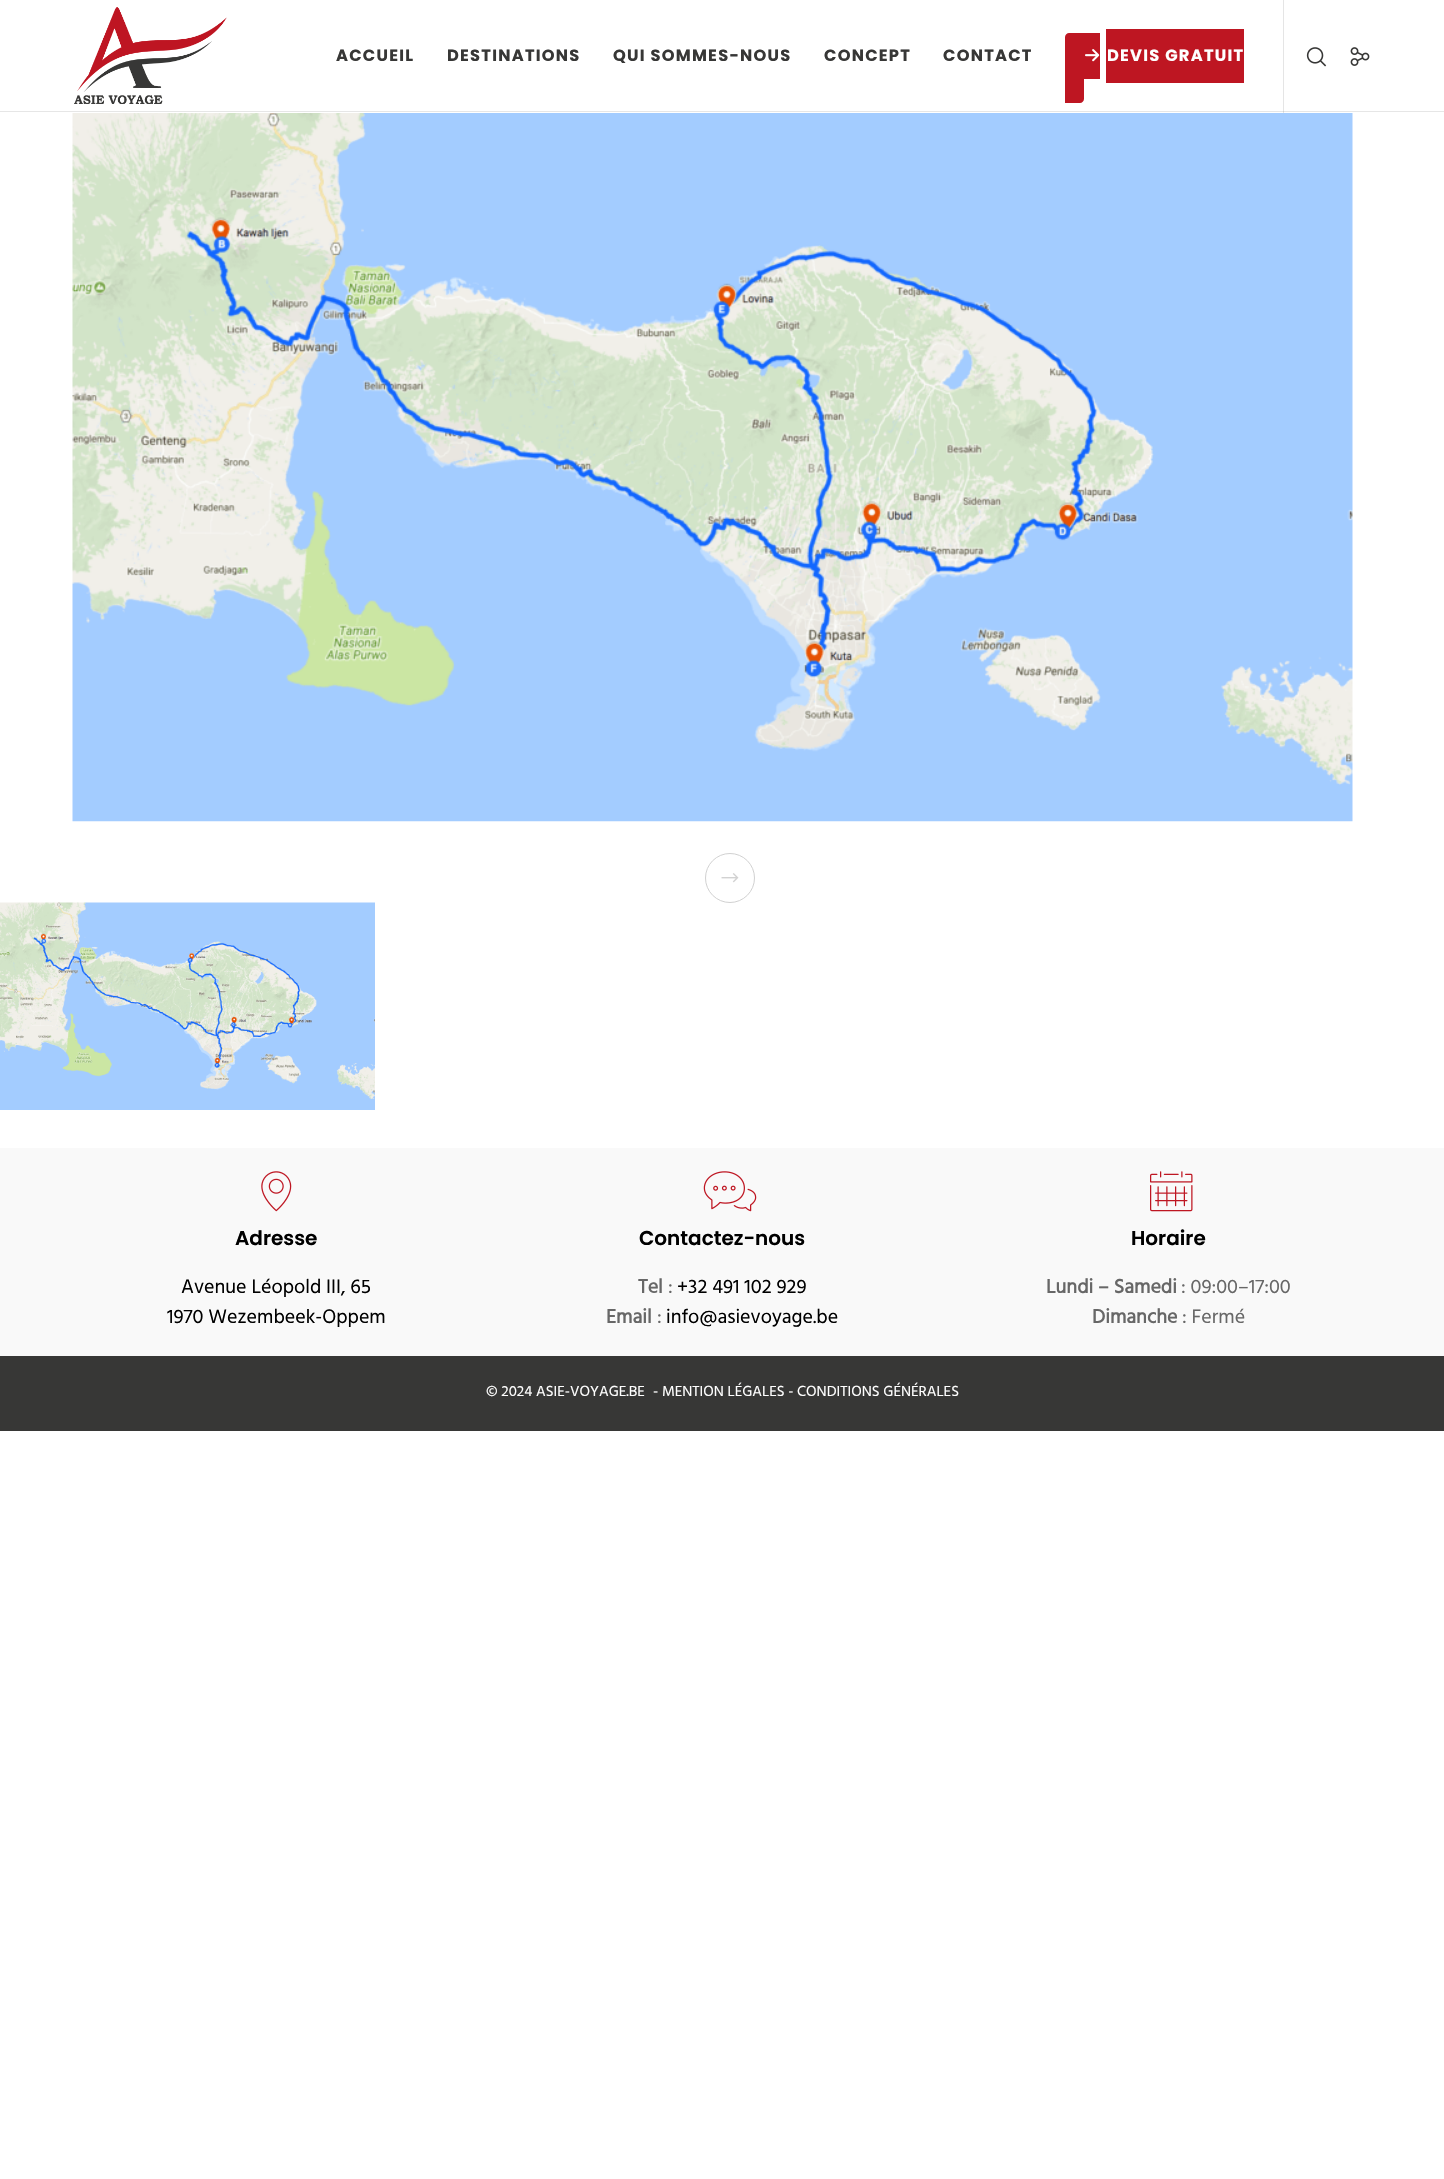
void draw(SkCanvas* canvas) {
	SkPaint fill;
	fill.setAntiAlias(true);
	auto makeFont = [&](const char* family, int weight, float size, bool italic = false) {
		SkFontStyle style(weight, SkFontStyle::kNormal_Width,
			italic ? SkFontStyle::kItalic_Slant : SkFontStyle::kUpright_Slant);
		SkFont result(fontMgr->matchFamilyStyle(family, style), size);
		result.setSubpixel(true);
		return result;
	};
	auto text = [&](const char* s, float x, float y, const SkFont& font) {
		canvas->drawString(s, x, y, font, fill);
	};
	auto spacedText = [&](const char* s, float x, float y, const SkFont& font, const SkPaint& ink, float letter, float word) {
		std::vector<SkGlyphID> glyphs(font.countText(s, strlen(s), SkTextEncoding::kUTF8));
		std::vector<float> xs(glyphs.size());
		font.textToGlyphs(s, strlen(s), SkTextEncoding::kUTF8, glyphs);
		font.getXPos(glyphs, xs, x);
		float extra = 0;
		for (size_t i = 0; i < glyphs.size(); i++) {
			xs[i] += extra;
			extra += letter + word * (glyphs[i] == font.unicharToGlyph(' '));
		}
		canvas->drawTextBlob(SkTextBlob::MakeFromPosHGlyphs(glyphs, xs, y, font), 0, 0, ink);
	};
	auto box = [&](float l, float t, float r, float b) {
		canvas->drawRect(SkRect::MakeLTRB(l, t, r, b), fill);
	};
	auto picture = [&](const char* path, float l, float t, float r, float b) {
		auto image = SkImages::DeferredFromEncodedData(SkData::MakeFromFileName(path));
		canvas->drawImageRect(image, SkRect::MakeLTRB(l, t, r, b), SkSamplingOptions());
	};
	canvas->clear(0xFFFFFFFF);
	fill.setColor(0xFFE6E6E6);
	box(0, 111, 1444, 112);
	picture("image0.png", 74, 7, 227, 104);
	fill.setColor(0xFFBE1622);
	canvas->drawPath(SkPathBuilder().moveTo(1069, 33).lineTo(1100, 33).lineTo(1100, 79).lineTo(1069, 79).cubicTo(1067, 79, 1065, 77, 1065, 75).lineTo(1065, 37).cubicTo(1065, 35, 1067, 33, 1069, 33).close().detach(), fill);
	box(1106, 29, 1244, 83);
	canvas->drawPath(SkPathBuilder().moveTo(1065, 70).lineTo(1080, 70).cubicTo(1082, 70, 1084, 72, 1084, 74).lineTo(1084, 99).cubicTo(1084, 101, 1082, 103, 1080, 103).lineTo(1065, 103).close().detach(), fill);
	picture("image1.png", 1085, 49, 1100, 62);
	fill.setColor(0x1A000000);
	box(1283, 0, 1284, 113);
	picture("image2.png", 1306, 47, 1327, 67);
	picture("image3.png", 1350, 47, 1370, 66);
	picture("image4.png", 72, 113, 1353, 822);
	fill.setStyle(SkPaint::kStroke_Style);
	fill.setStrokeWidth(1);
	fill.setColor(0xFFD1D1D1);
	canvas->drawCircle(730, 878, 24.5f, fill);
	picture("image5.png", 721, 873, 739, 883);
	picture("image6.png", 0, 902, 375, 1110);
	fill.setStyle(SkPaint::kFill_Style);
	fill.setColor(0xFFF9F9F9);
	box(0, 1148, 1444, 1356);
	picture("image7.png", 261, 1171, 292, 1212);
	picture("image8.png", 703, 1171, 757, 1212);
	picture("image9.png", 1150, 1171, 1193, 1212);
	fill.setColor(0xFF373736);
	box(0, 1356, 1444, 1431);
	auto font1 = makeFont("Poppins", 700, 16.25f);
	spacedText("ACCUEIL", 336, 61, font1, fill, 1.25f, 0);
	spacedText("DESTINATIONS", 447, 61, font1, fill, 1.25f, 0);
	spacedText("QUI SOMMES-NOUS", 613, 61, font1, fill, 1.25f, 0);
	spacedText("CONCEPT", 824, 61, font1, fill, 1.25f, 0);
	spacedText("CONTACT", 943, 61, font1, fill, 1.25f, 0);
	fill.setColor(0xFFFFFFFF);
	spacedText("DEVIS GRATUIT", 1107, 61, font1, fill, 1.25f, 0);
	auto font2 = makeFont("Poppins", 600, 20);
	fill.setColor(0xFF000000);
	text("Adresse", 235, 1245, font2);
	auto font3 = makeFont("Hind Guntur", 400, 20);
	text("Avenue Léopold III, 65", 181, 1293, font3);
	text("1970 Wezembeek-Oppem", 167, 1323, font3);
	text("Contactez-nous", 639, 1245, font2);
	auto font4 = makeFont("Hind Guntur", 700, 20);
	fill.setColor(0xFF676767);
	text("Tel", 638, 1293, font4);
	text(":", 668, 1293, font3);
	fill.setColor(0xFF000000);
	text("+32 491 102 929", 677, 1293, font3);
	fill.setColor(0xFF676767);
	text("Email", 606, 1323, font4);
	text(":", 657, 1323, font3);
	fill.setColor(0xFF000000);
	text("info@asievoyage.be", 666, 1323, font3);
	text("Horaire", 1131, 1245, font2);
	fill.setColor(0xFF676767);
	text("Lundi – Samedi", 1046, 1293, font4);
	text(": 09:00–17:00", 1181, 1293, font3);
	text("Dimanche", 1092, 1323, font4);
	text(": Fermé", 1182, 1323, font3);
	auto font5 = makeFont("Hind Guntur", 400, 15);
	fill.setColor(0xFFFFFFFF);
	text("© 2024 ASIE-VOYAGE.BE", 486, 1396, font5);
	text("- MENTION LÉGALES - CONDITIONS GÉNÉRALES", 653, 1396, font5);
}
